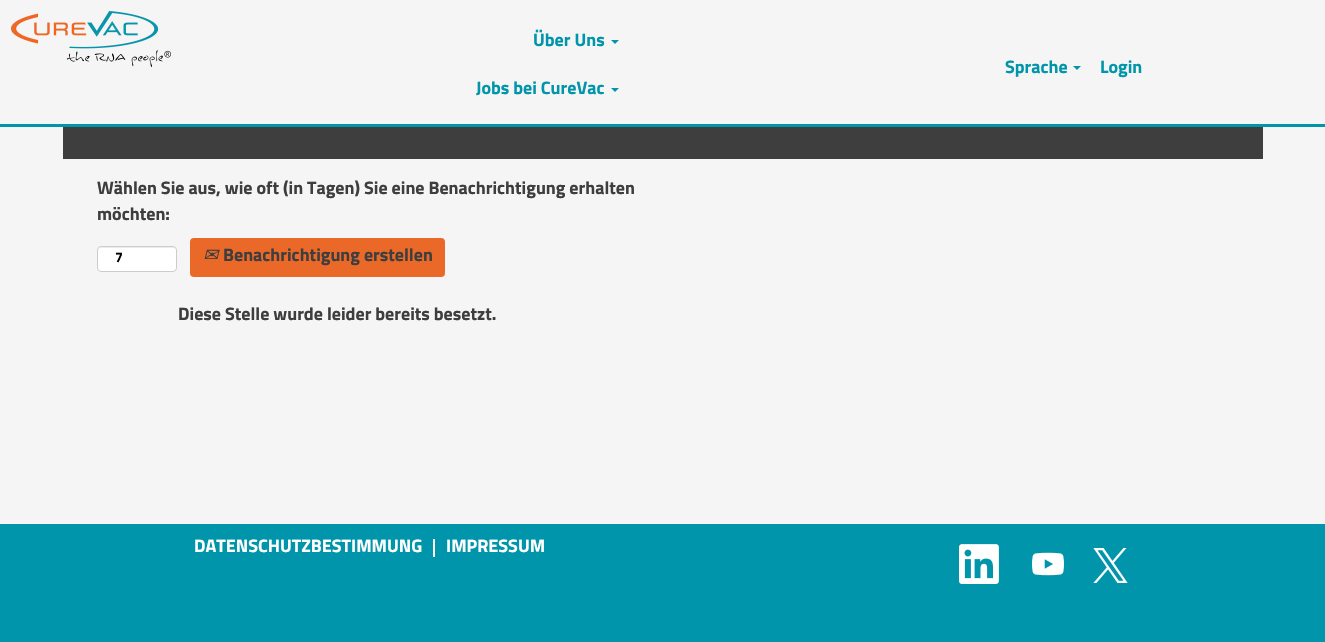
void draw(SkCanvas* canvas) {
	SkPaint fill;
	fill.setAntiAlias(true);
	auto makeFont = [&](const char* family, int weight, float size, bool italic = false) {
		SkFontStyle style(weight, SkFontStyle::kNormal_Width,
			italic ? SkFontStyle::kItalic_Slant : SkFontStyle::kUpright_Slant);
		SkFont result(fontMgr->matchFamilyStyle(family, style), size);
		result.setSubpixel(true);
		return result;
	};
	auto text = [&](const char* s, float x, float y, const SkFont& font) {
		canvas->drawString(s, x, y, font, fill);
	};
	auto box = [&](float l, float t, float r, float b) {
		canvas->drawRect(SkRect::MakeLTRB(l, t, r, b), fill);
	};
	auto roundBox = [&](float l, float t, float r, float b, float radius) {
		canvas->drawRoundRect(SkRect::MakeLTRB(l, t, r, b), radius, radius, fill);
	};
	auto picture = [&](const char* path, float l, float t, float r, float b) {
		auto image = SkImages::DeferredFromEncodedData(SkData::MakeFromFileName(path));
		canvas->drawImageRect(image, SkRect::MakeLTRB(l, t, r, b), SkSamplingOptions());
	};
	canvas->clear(0xFFF5F5F5);
	picture("image0.png", 11, 11, 171, 67);
	fill.setColor(0xFF0095AB);
	canvas->drawPath(SkPathBuilder().moveTo(611, 40).lineTo(619, 40).lineTo(615, 44).close().detach(), fill);
	canvas->drawPath(SkPathBuilder().moveTo(611, 88).lineTo(619, 88).lineTo(615, 92).close().detach(), fill);
	canvas->drawPath(SkPathBuilder().moveTo(1073, 66).lineTo(1081, 66).lineTo(1077, 70).close().detach(), fill);
	box(0, 124, 1325, 127);
	fill.setColor(0xFF3E3E3E);
	box(63, 127, 1263, 159);
	fill.setColor(0xFFFFFFFF);
	roundBox(97, 246, 177, 272, 4);
	fill.setColor(0xFFECECEC);
	canvas->drawPath(SkPathBuilder().moveTo(101, 248).lineTo(173, 248).cubicTo(175, 248, 176, 249, 176, 251).cubicTo(176, 244, 165, 247, 161, 247).lineTo(113, 247).cubicTo(109, 247, 98, 244, 98, 251).cubicTo(98, 249, 99, 248, 101, 248).close().detach(), fill);
	fill.setStyle(SkPaint::kStroke_Style);
	fill.setStrokeWidth(1);
	fill.setColor(0xFFCCCCCC);
	canvas->drawRoundRect(SkRect::MakeLTRB(97.5f, 246.5f, 176.5f, 271.5f), 3.5f, 3.5f, fill);
	fill.setStyle(SkPaint::kFill_Style);
	fill.setColor(0xFFEB6928);
	roundBox(190, 238, 445, 277, 4);
	fill.setColor(0xFF0095AB);
	box(0, 524, 1325, 642);
	fill.setColor(0xFFFFFFFF);
	box(433, 539, 435, 557);
	picture("image1.png", 959, 544, 999, 584);
	picture("image2.png", 1032, 552, 1064, 576);
	picture("image3.png", 1093, 548, 1128, 583);
	auto font1 = makeFont("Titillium", 700, 18);
	fill.setColor(0xFF0095AB);
	text("Über Uns", 533, 46, font1);
	text("Jobs bei CureVac", 476, 94, font1);
	text("Sprache", 1005, 73, font1);
	text("Login", 1100, 73, font1);
	fill.setColor(0xFF3E3E3E);
	text("Wählen Sie aus, wie oft (in Tagen) Sie eine Benachrichtigung erhalten", 97, 194, font1);
	text("möchten:", 97, 220, font1);
	auto font2 = makeFont("Titillium", 700, 14);
	fill.setColor(0xFF000000);
	text("7", 115, 262, font2);
	auto font3 = makeFont("DejaVu Sans", 400, 18, true);
	fill.setColor(0xFF3E3E3E);
	text("✉", 203, 261, font3);
	text("Benachrichtigung erstellen", 223, 261, font1);
	text("Diese Stelle wurde leider bereits besetzt.", 178, 320, font1);
	fill.setColor(0xFFFFFFFF);
	text("DATENSCHUTZBESTIMMUNG", 194, 552, font1);
	text("IMPRESSUM", 446, 552, font1);
}
